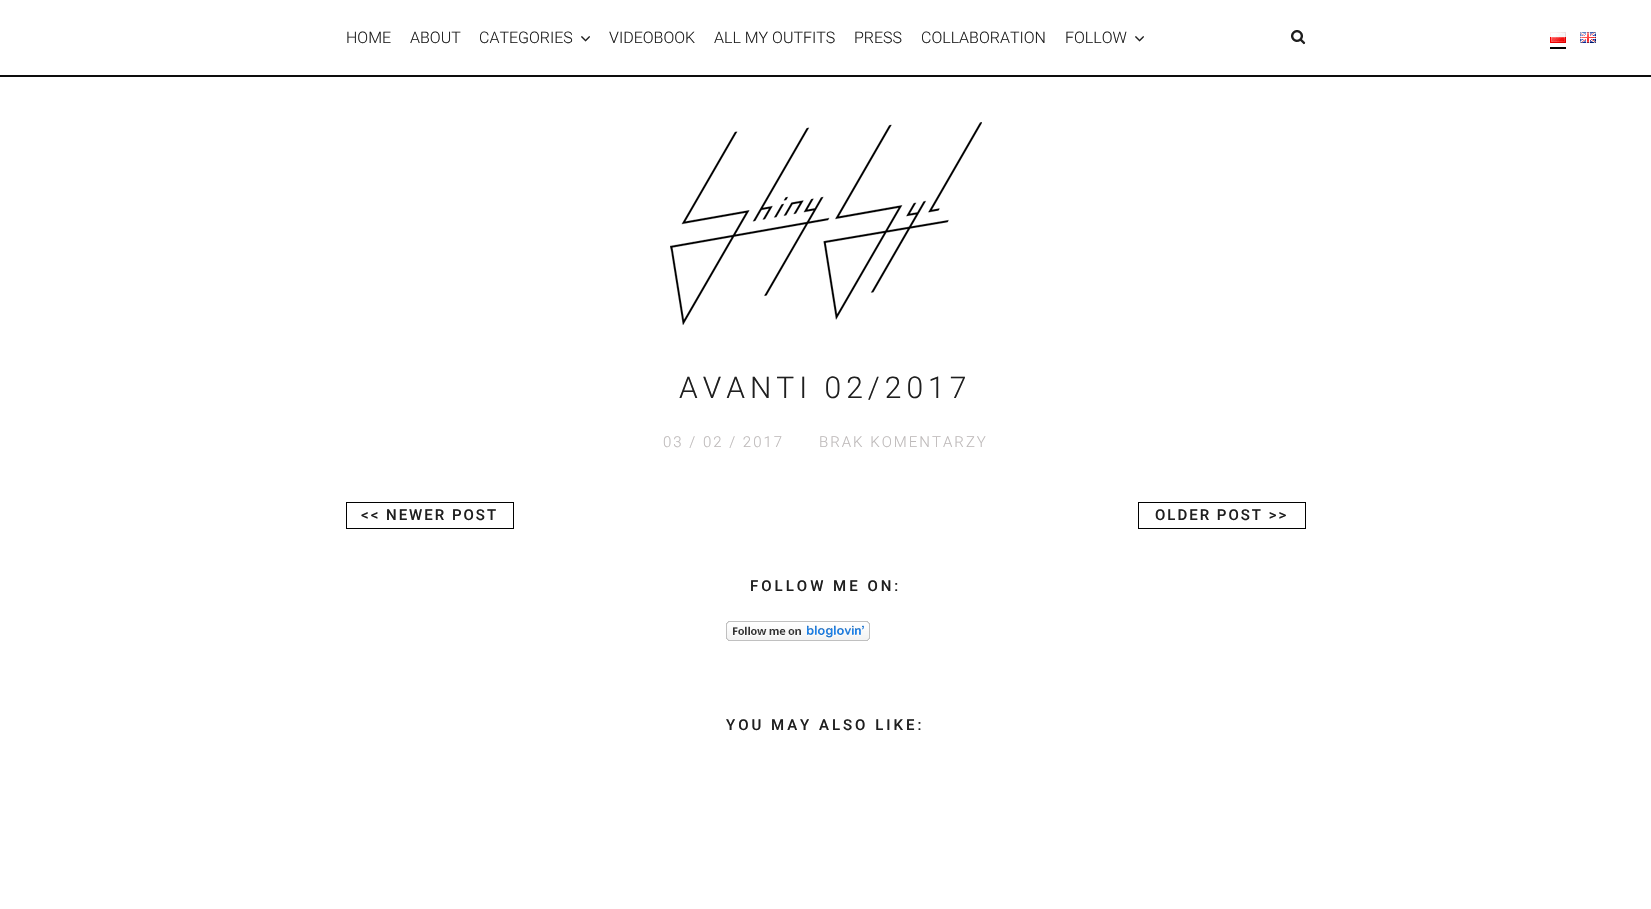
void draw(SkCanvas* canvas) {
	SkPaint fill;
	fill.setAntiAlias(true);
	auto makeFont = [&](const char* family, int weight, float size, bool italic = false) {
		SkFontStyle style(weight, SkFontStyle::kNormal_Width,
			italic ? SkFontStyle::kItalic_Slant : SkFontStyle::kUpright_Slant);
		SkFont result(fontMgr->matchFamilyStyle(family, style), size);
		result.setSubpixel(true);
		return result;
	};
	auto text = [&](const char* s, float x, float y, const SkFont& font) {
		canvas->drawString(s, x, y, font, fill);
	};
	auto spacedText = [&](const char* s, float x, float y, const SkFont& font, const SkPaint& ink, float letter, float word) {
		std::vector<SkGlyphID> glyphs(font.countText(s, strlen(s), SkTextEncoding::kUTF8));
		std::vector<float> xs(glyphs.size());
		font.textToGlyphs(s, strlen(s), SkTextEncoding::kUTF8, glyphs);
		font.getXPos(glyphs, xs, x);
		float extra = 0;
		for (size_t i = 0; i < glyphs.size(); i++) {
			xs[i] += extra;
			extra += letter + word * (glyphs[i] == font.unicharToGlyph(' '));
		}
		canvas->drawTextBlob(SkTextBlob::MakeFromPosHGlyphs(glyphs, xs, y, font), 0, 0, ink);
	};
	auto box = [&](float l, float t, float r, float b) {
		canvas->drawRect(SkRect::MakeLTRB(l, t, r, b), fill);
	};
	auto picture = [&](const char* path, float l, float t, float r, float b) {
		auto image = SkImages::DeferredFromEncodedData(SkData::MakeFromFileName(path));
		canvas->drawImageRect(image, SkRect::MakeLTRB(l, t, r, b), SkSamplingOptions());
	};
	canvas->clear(0xFFFFFFFF);
	fill.setColor(0xFF0D0D0D);
	box(0, 75, 1651, 77);
	picture("image0.png", 581, 36, 590, 42);
	picture("image0.png", 1135, 36, 1144, 42);
	picture("image1.png", 1291, 30, 1306, 45);
	fill.setColor(0xFF020202);
	box(1550, 47, 1566, 49);
	picture("image2.png", 1550, 32, 1566, 43);
	picture("image3.png", 1580, 32, 1596, 43);
	picture("image4.png", 670, 122, 982, 325);
	fill.setStyle(SkPaint::kStroke_Style);
	fill.setStrokeWidth(1);
	fill.setColor(0xFF010101);
	canvas->drawRect(SkRect::MakeLTRB(346.5f, 502.5f, 513.5f, 528.5f), fill);
	canvas->drawRect(SkRect::MakeLTRB(1138.5f, 502.5f, 1305.5f, 528.5f), fill);
	picture("image5.png", 726, 621, 870, 641);
	auto font1 = makeFont("Roboto", 300, 16);
	fill.setStyle(SkPaint::kFill_Style);
	fill.setColor(0xFF1F1F1F);
	text("HOME", 346, 43, font1);
	text("ABOUT", 410, 43, font1);
	text("CATEGORIES", 479, 43, font1);
	text("VIDEOBOOK", 609, 43, font1);
	text("ALL MY OUTFITS", 714, 43, font1);
	text("PRESS", 854, 43, font1);
	text("COLLABORATION", 921, 43, font1);
	text("FOLLOW", 1065, 43, font1);
	auto font2 = makeFont("Roboto", 300, 30);
	spacedText("AVANTI 02/2017", 679, 398, font2, fill, 5, 0);
	auto font3 = makeFont("Roboto", 300, 15);
	fill.setColor(0xFFBEBABA);
	spacedText("03 / 02 / 2017", 663, 447, font3, fill, 2, 0);
	spacedText("BRAK KOMENTARZY", 819, 447, font3, fill, 2, 0);
	auto font4 = makeFont("Roboto", 500, 15);
	fill.setColor(0xFF1F1F1F);
	spacedText("<< NEWER POST", 361, 520, font4, fill, 2, 0);
	spacedText("OLDER POST >>", 1155, 520, font4, fill, 2, 0);
	spacedText("FOLLOW ME ON:", 750, 591, font4, fill, 3, 0);
	spacedText("YOU MAY ALSO LIKE:", 726, 730, font4, fill, 3, 0);
}
